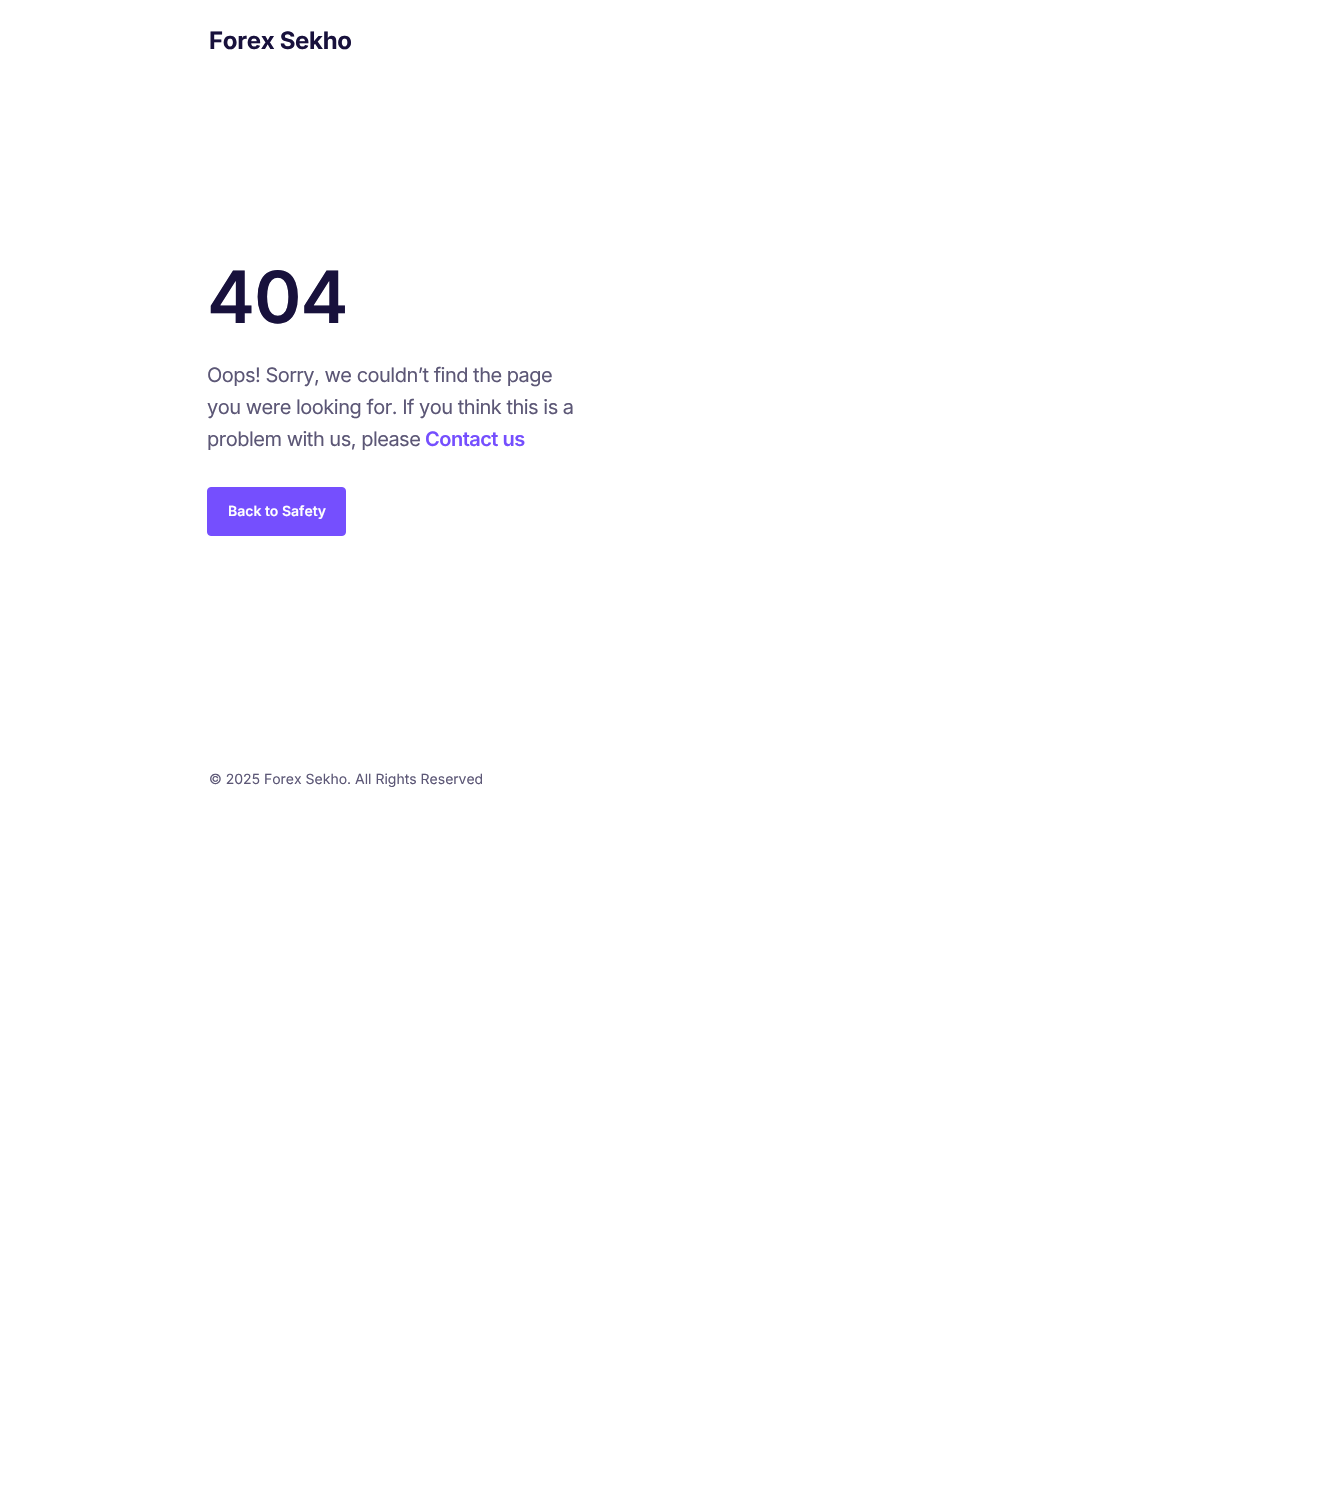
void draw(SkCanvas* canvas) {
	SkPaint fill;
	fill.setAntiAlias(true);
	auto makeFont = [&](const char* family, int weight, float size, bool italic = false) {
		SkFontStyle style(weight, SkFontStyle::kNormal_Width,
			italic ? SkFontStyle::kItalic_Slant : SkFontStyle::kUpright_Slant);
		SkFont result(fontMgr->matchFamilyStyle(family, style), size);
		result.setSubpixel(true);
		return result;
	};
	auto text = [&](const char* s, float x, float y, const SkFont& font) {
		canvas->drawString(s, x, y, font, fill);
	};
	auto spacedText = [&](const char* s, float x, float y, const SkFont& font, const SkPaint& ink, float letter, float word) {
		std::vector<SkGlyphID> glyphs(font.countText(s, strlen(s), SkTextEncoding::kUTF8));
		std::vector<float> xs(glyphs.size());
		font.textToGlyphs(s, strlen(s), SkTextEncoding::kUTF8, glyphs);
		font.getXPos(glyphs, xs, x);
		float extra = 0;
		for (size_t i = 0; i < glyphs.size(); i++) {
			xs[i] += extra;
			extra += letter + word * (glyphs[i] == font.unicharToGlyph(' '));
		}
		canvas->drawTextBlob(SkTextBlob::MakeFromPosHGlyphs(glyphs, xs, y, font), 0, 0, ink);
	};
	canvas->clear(0xFFFFFFFF);
	fill.setColor(0xFF754FFE);
	canvas->drawRoundRect(SkRect::MakeLTRB(207.5f, 487.5f, 345.5f, 535.5f), 3.5f, 3.5f, fill);
	fill.setStyle(SkPaint::kStroke_Style);
	fill.setStrokeWidth(1);
	canvas->drawRoundRect(SkRect::MakeLTRB(207.5f, 487.5f, 345.5f, 535.5f), 3.5f, 3.5f, fill);
	auto font1 = makeFont("Inter", 700, 24);
	fill.setStyle(SkPaint::kFill_Style);
	fill.setColor(0xFF18113C);
	spacedText("Forex Sekho", 209, 49, font1, fill, -0.3f, 0);
	auto font2 = makeFont("Inter", 600, 72);
	spacedText("404", 207, 323, font2, fill, -1, 0);
	auto font3 = makeFont("Inter", 400, 20);
	fill.setColor(0xFF5C5776);
	spacedText("Oops! Sorry, we couldn’t find the page", 207, 382, font3, fill, -0.5f, 0);
	spacedText("you were looking for. If you think this is a", 207, 414, font3, fill, -0.5f, 0);
	spacedText("problem with us, please", 207, 446, font3, fill, -0.5f, 0);
	auto font4 = makeFont("Inter", 600, 20);
	fill.setColor(0xFF754FFE);
	spacedText("Contact us", 425, 446, font4, fill, -0.5f, 0);
	auto font5 = makeFont("Inter", 600, 14);
	fill.setColor(0xFFFFFFFF);
	text("Back to Safety", 228, 516, font5);
	auto font6 = makeFont("Inter", 400, 14);
	fill.setColor(0xFF5C5776);
	text("© 2025 Forex Sekho. All Rights Reserved", 209, 784, font6);
}
